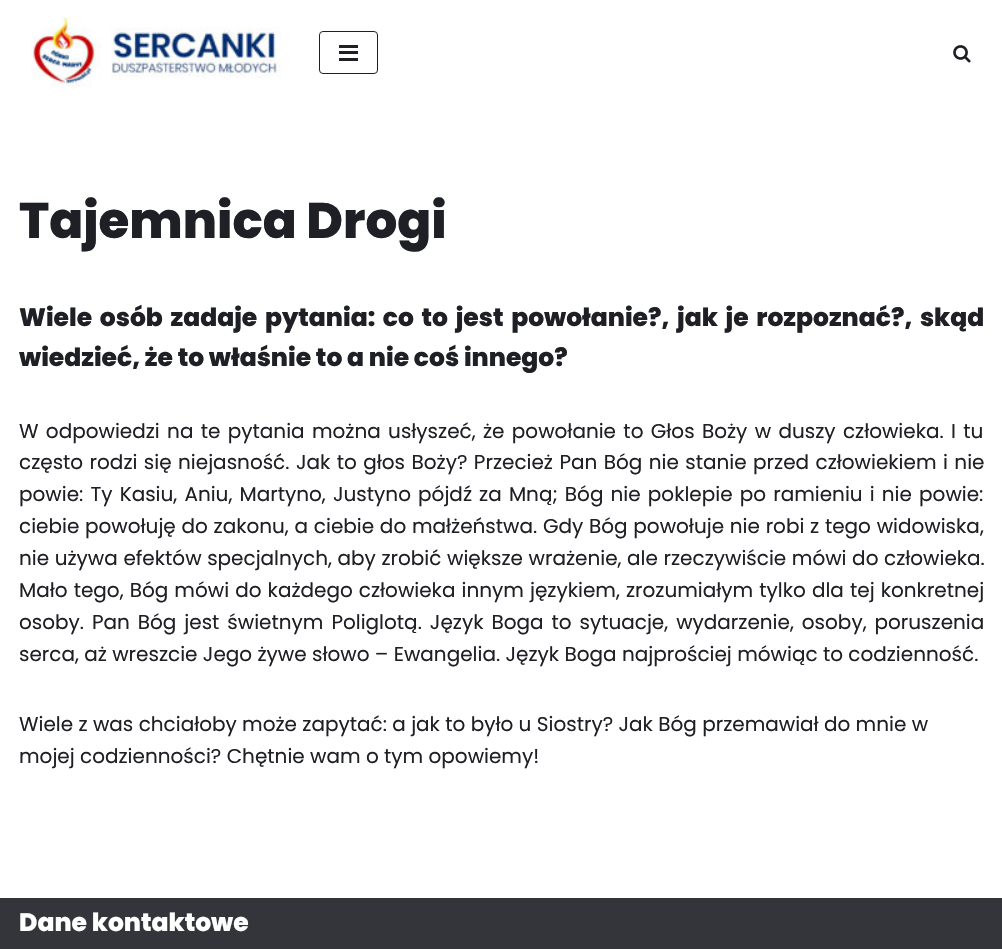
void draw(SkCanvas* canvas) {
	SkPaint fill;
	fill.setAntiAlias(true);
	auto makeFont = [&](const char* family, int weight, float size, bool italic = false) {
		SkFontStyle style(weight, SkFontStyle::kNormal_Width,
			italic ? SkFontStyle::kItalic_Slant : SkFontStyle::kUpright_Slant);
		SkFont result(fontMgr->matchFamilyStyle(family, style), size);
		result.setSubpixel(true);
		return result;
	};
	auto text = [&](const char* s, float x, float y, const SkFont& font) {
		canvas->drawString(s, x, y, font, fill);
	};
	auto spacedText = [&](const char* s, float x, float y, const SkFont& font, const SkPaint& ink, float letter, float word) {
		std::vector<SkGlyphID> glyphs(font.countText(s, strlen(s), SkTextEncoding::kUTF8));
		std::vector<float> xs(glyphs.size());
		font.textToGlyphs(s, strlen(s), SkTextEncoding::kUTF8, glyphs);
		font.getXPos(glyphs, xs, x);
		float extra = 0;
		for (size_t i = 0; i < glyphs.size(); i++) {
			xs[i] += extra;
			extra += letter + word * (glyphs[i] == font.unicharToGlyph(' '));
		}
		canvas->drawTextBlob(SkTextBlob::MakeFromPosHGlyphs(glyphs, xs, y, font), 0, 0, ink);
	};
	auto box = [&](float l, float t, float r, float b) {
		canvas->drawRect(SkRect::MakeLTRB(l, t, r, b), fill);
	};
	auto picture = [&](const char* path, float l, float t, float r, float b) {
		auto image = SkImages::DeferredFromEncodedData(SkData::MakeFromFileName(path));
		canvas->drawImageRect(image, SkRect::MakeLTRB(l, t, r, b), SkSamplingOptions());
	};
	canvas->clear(0xFFFFFFFF);
	picture("image0.png", 31, 17, 281, 88);
	fill.setStyle(SkPaint::kStroke_Style);
	fill.setStrokeWidth(1);
	fill.setColor(0xFF1F2025);
	canvas->drawRoundRect(SkRect::MakeLTRB(319.5f, 31.5f, 377.5f, 73.5f), 3.5f, 3.5f, fill);
	fill.setStyle(SkPaint::kFill_Style);
	box(339, 45, 358, 48);
	box(339, 51, 358, 54);
	box(339, 58, 358, 61);
	picture("image1.png", 953, 45, 971, 63);
	fill.setColor(0xFF33353A);
	box(0, 898, 1002, 949);
	auto font1 = makeFont("Poppins", 800, 50);
	fill.setColor(0xFF1F2025);
	text("Tajemnica Drogi", 19, 238, font1);
	auto font2 = makeFont("Poppins", 800, 25);
	spacedText("Wiele osób zadaje pytania: co to jest powołanie?, jak je rozpoznać?, skąd", 19, 326, font2, fill, 0, 2.9f);
	text("wiedzieć, że to właśnie to a nie coś innego?", 19, 366, font2);
	auto font3 = makeFont("Poppins", 400, 20);
	spacedText("W odpowiedzi na te pytania można usłyszeć, że powołanie to Głos Boży w duszy człowieka. I tu", 19, 438, font3, fill, 0, 2);
	spacedText("często rodzi się niejasność. Jak to głos Boży? Przecież Pan Bóg nie stanie przed człowiekiem i nie", 19, 469, font3, fill, 0, 1.1f);
	spacedText("powie: Ty Kasiu, Aniu, Martyno, Justyno pójdź za Mną; Bóg nie poklepie po ramieniu i nie powie:", 19, 501, font3, fill, 0, 1.8f);
	spacedText("ciebie powołuję do zakonu, a ciebie do małżeństwa. Gdy Bóg powołuje nie robi z tego widowiska,", 19, 533, font3, fill, 0, 0.4f);
	spacedText("nie używa efektów specjalnych, aby zrobić większe wrażenie, ale rzeczywiście mówi do człowieka.", 19, 565, font3, fill, 0, 0.25f);
	spacedText("Mało tego, Bóg mówi do każdego człowieka innym językiem, zrozumiałym tylko dla tej konkretnej", 19, 597, font3, fill, 0, 0.75f);
	spacedText("osoby. Pan Bóg jest świetnym Poliglotą. Język Boga to sytuacje, wydarzenie, osoby, poruszenia", 19, 629, font3, fill, 0, 2.6f);
	text("serca, aż wreszcie Jego żywe słowo – Ewangelia. Język Boga najprościej mówiąc to codzienność.", 19, 661, font3);
	text("Wiele z was chciałoby może zapytać: a jak to było u Siostry? Jak Bóg przemawiał do mnie w", 19, 731, font3);
	text("mojej codzienności? Chętnie wam o tym opowiemy!", 19, 763, font3);
	fill.setColor(0xFFFFFFFF);
	text("Dane kontaktowe", 19, 931, font2);
}
